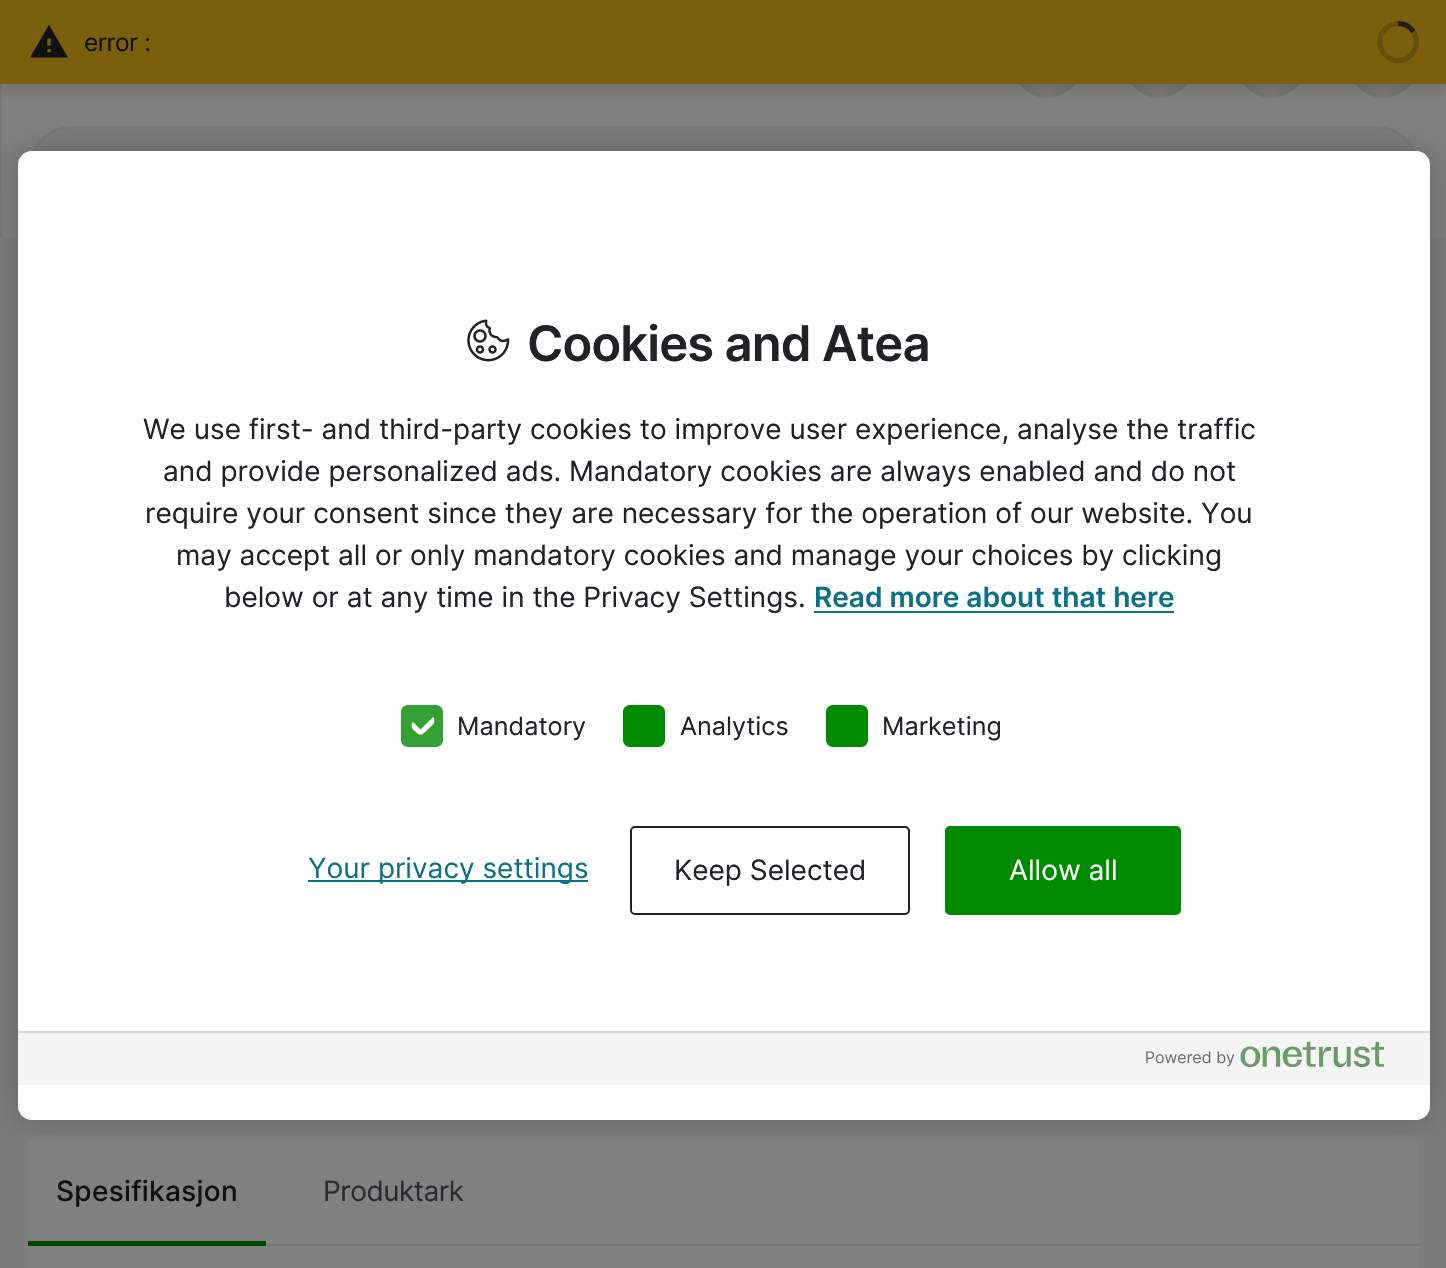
void draw(SkCanvas* canvas) {
	SkPaint fill;
	fill.setAntiAlias(true);
	auto makeFont = [&](const char* family, int weight, float size, bool italic = false) {
		SkFontStyle style(weight, SkFontStyle::kNormal_Width,
			italic ? SkFontStyle::kItalic_Slant : SkFontStyle::kUpright_Slant);
		SkFont result(fontMgr->matchFamilyStyle(family, style), size);
		result.setSubpixel(true);
		return result;
	};
	auto text = [&](const char* s, float x, float y, const SkFont& font) {
		canvas->drawString(s, x, y, font, fill);
	};
	auto spacedText = [&](const char* s, float x, float y, const SkFont& font, const SkPaint& ink, float letter, float word) {
		std::vector<SkGlyphID> glyphs(font.countText(s, strlen(s), SkTextEncoding::kUTF8));
		std::vector<float> xs(glyphs.size());
		font.textToGlyphs(s, strlen(s), SkTextEncoding::kUTF8, glyphs);
		font.getXPos(glyphs, xs, x);
		float extra = 0;
		for (size_t i = 0; i < glyphs.size(); i++) {
			xs[i] += extra;
			extra += letter + word * (glyphs[i] == font.unicharToGlyph(' '));
		}
		canvas->drawTextBlob(SkTextBlob::MakeFromPosHGlyphs(glyphs, xs, y, font), 0, 0, ink);
	};
	auto box = [&](float l, float t, float r, float b) {
		canvas->drawRect(SkRect::MakeLTRB(l, t, r, b), fill);
	};
	auto roundBox = [&](float l, float t, float r, float b, float radius) {
		canvas->drawRoundRect(SkRect::MakeLTRB(l, t, r, b), radius, radius, fill);
	};
	auto picture = [&](const char* path, float l, float t, float r, float b) {
		auto image = SkImages::DeferredFromEncodedData(SkData::MakeFromFileName(path));
		canvas->drawImageRect(image, SkRect::MakeLTRB(l, t, r, b), SkSamplingOptions());
	};
	canvas->clear(0xFF7C7C7C);
	fill.setColor(0xFF777777);
	box(0, 84, 2, 238);
	fill.setColor(0xFF808080);
	box(2, 84, 1446, 238);
	fill.setColor(0xFF6E6F70);
	canvas->drawCircle(1047, 63, 35, fill);
	{
		const SkColor colors[] = {0x00777777, 0xFF777777, 0x00777777};
		const float stops[] = {0, 0.5f, 1};
		const SkPoint ends[] = {{1012, 63}, {1082, 63}};
		fill.setShader(SkGradientShader::MakeLinear(ends, colors, stops, 3, SkTileMode::kClamp));
		fill.setAlpha(255);
	}
	canvas->drawCircle(1047, 63, 35, fill);
	fill.setShader(nullptr);
	fill.setColor(0xFF6E6F70);
	canvas->drawCircle(1159, 63, 35, fill);
	{
		const SkColor colors[] = {0x00777777, 0xFF777777, 0x00777777};
		const float stops[] = {0, 0.5f, 1};
		const SkPoint ends[] = {{1124, 63}, {1194, 63}};
		fill.setShader(SkGradientShader::MakeLinear(ends, colors, stops, 3, SkTileMode::kClamp));
		fill.setAlpha(255);
	}
	canvas->drawCircle(1159, 63, 35, fill);
	fill.setShader(nullptr);
	fill.setColor(0xFF6E6F70);
	canvas->drawCircle(1271, 63, 35, fill);
	{
		const SkColor colors[] = {0x00777777, 0xFF777777, 0x00777777};
		const float stops[] = {0, 0.5f, 1};
		const SkPoint ends[] = {{1236, 63}, {1306, 63}};
		fill.setShader(SkGradientShader::MakeLinear(ends, colors, stops, 3, SkTileMode::kClamp));
		fill.setAlpha(255);
	}
	canvas->drawCircle(1271, 63, 35, fill);
	fill.setShader(nullptr);
	fill.setColor(0xFF6E6F70);
	canvas->drawCircle(1383, 63, 35, fill);
	{
		const SkColor colors[] = {0x00777777, 0xFF777777, 0x00777777};
		const float stops[] = {0, 0.5f, 1};
		const SkPoint ends[] = {{1348, 63}, {1418, 63}};
		fill.setShader(SkGradientShader::MakeLinear(ends, colors, stops, 3, SkTileMode::kClamp));
		fill.setAlpha(255);
	}
	canvas->drawCircle(1383, 63, 35, fill);
	fill.setShader(nullptr);
	fill.setColor(0x1A000000);
	fill.setMaskFilter(SkMaskFilter::MakeBlur(kNormal_SkBlurStyle, 7));
	canvas->drawRect(SkRect::MakeLTRB(0, 7, 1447, 91), fill);
	fill.setMaskFilter(nullptr);
	fill.setColor(0xFF7B5F0C);
	box(0, 0, 1446, 84);
	picture("image0.png", 30, 25, 68, 58);
	canvas->save();
	canvas->clipRect(SkRect::MakeLTRB(1377, 21, 1419, 63));
	fill.setStyle(SkPaint::kStroke_Style);
	fill.setStrokeWidth(5.2f);
	fill.setColor(0xFF664F0D);
	canvas->drawPath(SkPathBuilder().moveTo(1398, 23.5f).cubicTo(1408.5f, 23.5f, 1416.5f, 32, 1416.5f, 42).cubicTo(1416.5f, 52, 1408.5f, 60.5f, 1398, 60.5f).cubicTo(1388, 60.5f, 1380, 52, 1380, 42).cubicTo(1380, 32, 1388, 23.5f, 1398, 23.5f).detach(), fill);
	canvas->restore();
	fill.setColor(0xCC0F1112);
	canvas->drawPath(SkPathBuilder().moveTo(1398, 23.5f).cubicTo(1404.5f, 23.5f, 1410, 26.5f, 1413.5f, 31.5f).detach(), fill);
	fill.setStyle(SkPaint::kFill_Style);
	fill.setColor(0xFF7C7C7C);
	canvas->drawRoundRect(SkRect::MakeLTRB(31, 127, 1417, 209), 41, 41, fill);
	fill.setStyle(SkPaint::kStroke_Style);
	fill.setStrokeWidth(2);
	fill.setColor(0xFF777777);
	canvas->drawRoundRect(SkRect::MakeLTRB(31, 127, 1417, 209), 41, 41, fill);
	fill.setStyle(SkPaint::kFill_Style);
	fill.setColor(0xFF808080);
	roundBox(28, 1134, 1419, 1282, 14);
	fill.setColor(0x33000000);
	fill.setMaskFilter(SkMaskFilter::MakeBlur(kNormal_SkBlurStyle, 16));
	canvas->drawRoundRect(SkRect::MakeLTRB(18, 151, 1430, 1120), 14, 14, fill);
	fill.setMaskFilter(nullptr);
	fill.setColor(0xFFFFFFFF);
	roundBox(18, 151, 1430, 1120, 14);
	picture("image1.png", 467, 319, 510, 362);
	fill.setColor(0xFF097288);
	box(814, 611, 1174, 613);
	fill.setColor(0xFF33A133);
	canvas->drawPath(SkPathBuilder().moveTo(408, 705).lineTo(436, 705).cubicTo(440, 705, 443, 708, 443, 712).lineTo(443, 740).cubicTo(443, 744, 440, 747, 436, 747).lineTo(408, 747).cubicTo(404, 747, 401, 744, 401, 740).lineTo(401, 712).cubicTo(401, 708, 404, 705, 408, 705).close().detach(), fill);
	fill.setColor(0xFFFFFFFF);
	canvas->drawPath(SkPathBuilder(SkPathFillType::kEvenOdd).moveTo(413, 722).lineTo(421.5f, 713.5f).cubicTo(424, 711.5f, 427, 711.5f, 429, 713.5f).lineTo(433, 717).cubicTo(435, 719, 435, 722.5f, 433, 724.5f).lineTo(424, 733).cubicTo(422, 735, 419, 735, 417, 733).lineTo(413, 729.5f).cubicTo(411, 727.5f, 411, 724, 413, 722).close().moveTo(413, 722).lineTo(421.5f, 713.5f).cubicTo(424, 711.5f, 427, 711.5f, 429, 713.5f).lineTo(433, 717).lineTo(420.5f, 729.5f).close().detach(), fill);
	fill.setColor(0xFF008A00);
	canvas->drawPath(SkPathBuilder().moveTo(630, 705).lineTo(658, 705).cubicTo(662, 705, 665, 708, 665, 712).lineTo(665, 740).cubicTo(665, 744, 662, 747, 658, 747).lineTo(630, 747).cubicTo(626, 747, 623, 744, 623, 740).lineTo(623, 712).cubicTo(623, 708, 626, 705, 630, 705).close().detach(), fill);
	canvas->drawPath(SkPathBuilder().moveTo(833, 705).lineTo(861, 705).cubicTo(865, 705, 868, 708, 868, 712).lineTo(868, 740).cubicTo(868, 744, 865, 747, 861, 747).lineTo(833, 747).cubicTo(829, 747, 826, 744, 826, 740).lineTo(826, 712).cubicTo(826, 708, 829, 705, 833, 705).close().detach(), fill);
	fill.setColor(0xFF097288);
	box(308, 880, 588, 882);
	fill.setStyle(SkPaint::kStroke_Style);
	fill.setColor(0xFF1F2325);
	canvas->drawRoundRect(SkRect::MakeLTRB(631, 827, 909, 914), 4, 4, fill);
	fill.setStyle(SkPaint::kFill_Style);
	fill.setColor(0xFF008A00);
	canvas->drawRoundRect(SkRect::MakeLTRB(946, 827, 1180, 914), 4, 4, fill);
	fill.setStyle(SkPaint::kStroke_Style);
	canvas->drawRoundRect(SkRect::MakeLTRB(946, 827, 1180, 914), 4, 4, fill);
	fill.setStyle(SkPaint::kFill_Style);
	fill.setColor(0xFFF4F4F4);
	box(18, 1033, 1430, 1085);
	fill.setColor(0xFFD8D8D8);
	box(18, 1031, 1430, 1033);
	picture("image2.png", 1146, 1041, 1384, 1067);
	canvas->save();
	canvas->clipRect(SkRect::MakeLTRB(28, 1134, 1419, 1246));
	fill.setColor(0xFF777777);
	canvas->drawPath(SkPathBuilder(SkPathFillType::kEvenOdd).moveTo(-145, 961).lineTo(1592, 961).lineTo(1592, 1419).lineTo(-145, 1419).close().moveTo(28, 1130).lineTo(1419, 1130).lineTo(1420, 1131).lineTo(1420, 1244).lineTo(28, 1244).lineTo(27, 1243).lineTo(27, 1131).close().detach(), fill);
	canvas->restore();
	fill.setColor(0xFF004500);
	box(28, 1241, 266, 1246);
	auto font1 = makeFont("Inter", 400, 24.5f);
	fill.setColor(0xFF0F1112);
	spacedText("error :", 84, 51, font1, fill, -0.5f, 0);
	auto font2 = makeFont("Inter", 600, 49);
	fill.setColor(0xFF1F2326);
	spacedText("Cookies and Atea", 527, 361, font2, fill, -0.9f, 0);
	auto font3 = makeFont("Inter", 400, 28);
	text("We use first- and third-party cookies to improve user experience, analyse the traffic", 143, 439, font3);
	text("and provide personalized ads. Mandatory cookies are always enabled and do not", 163, 481, font3);
	text("require your consent since they are necessary for the operation of our website. You", 145, 523, font3);
	text("may accept all or only mandatory cookies and manage your choices by clicking", 176, 565, font3);
	text("below or at any time in the Privacy Settings.", 224, 607, font3);
	auto font4 = makeFont("Inter", 600, 28);
	fill.setColor(0xFF097288);
	text("Read more about that here", 814, 607, font4);
	auto font5 = makeFont("Inter", 400, 25.25f);
	fill.setColor(0xFF1F2326);
	text("Mandatory", 457, 735, font5);
	text("Analytics", 680, 735, font5);
	text("Marketing", 882, 735, font5);
	fill.setColor(0xFF097288);
	text("Your privacy settings", 308, 878, font3);
	fill.setColor(0xFF1F2326);
	text("Keep Selected", 674, 880, font3);
	fill.setColor(0xFFFFFFFF);
	text("Allow all", 1009, 880, font3);
	auto font6 = makeFont("Inter", 500, 28);
	fill.setColor(0xFF0F1112);
	spacedText("Spesifikasjon", 56, 1201, font6, fill, 0.3f, 0);
	fill.setColor(0xFF272C2F);
	spacedText("Produktark", 323, 1201, font3, fill, -0.5f, 0);
}
